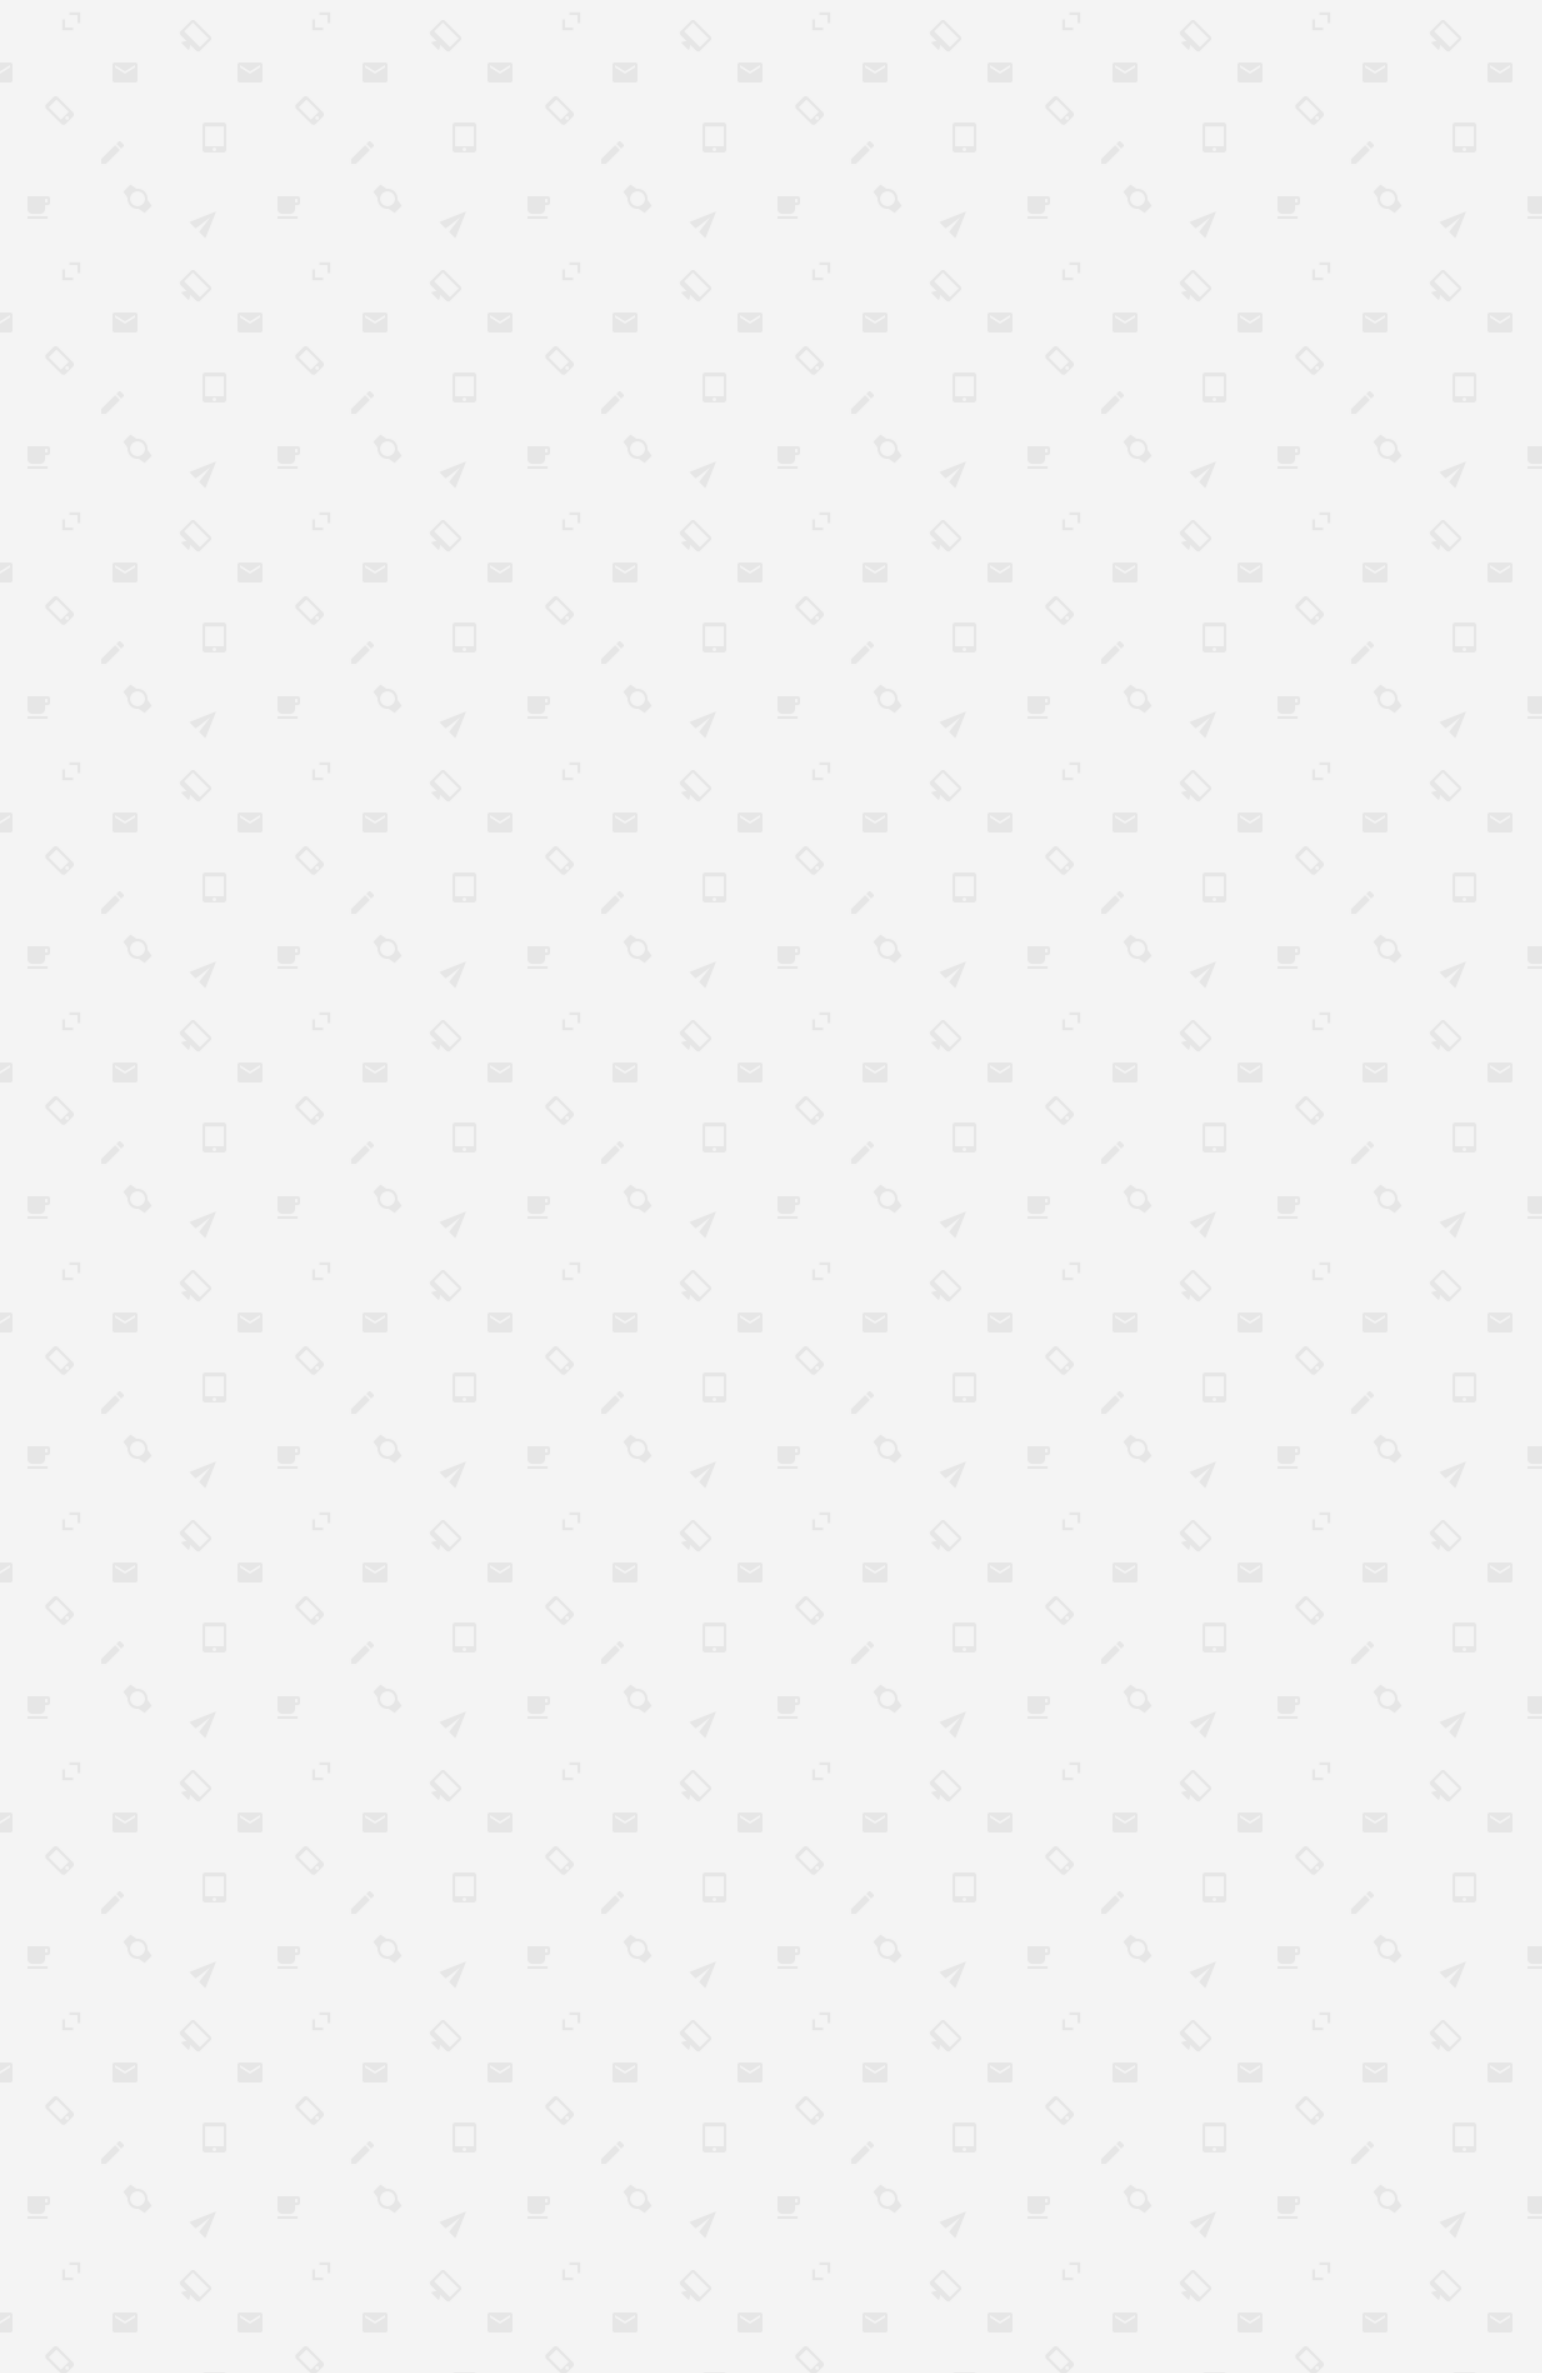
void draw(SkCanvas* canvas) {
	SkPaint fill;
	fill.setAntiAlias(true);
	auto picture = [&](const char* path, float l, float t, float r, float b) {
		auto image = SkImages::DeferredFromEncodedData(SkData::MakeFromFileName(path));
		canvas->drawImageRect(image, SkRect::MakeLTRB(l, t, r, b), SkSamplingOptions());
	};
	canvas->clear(0xFFFFFFFF);
	picture("image0.png", 0, 0, 1542, 2373);
}
